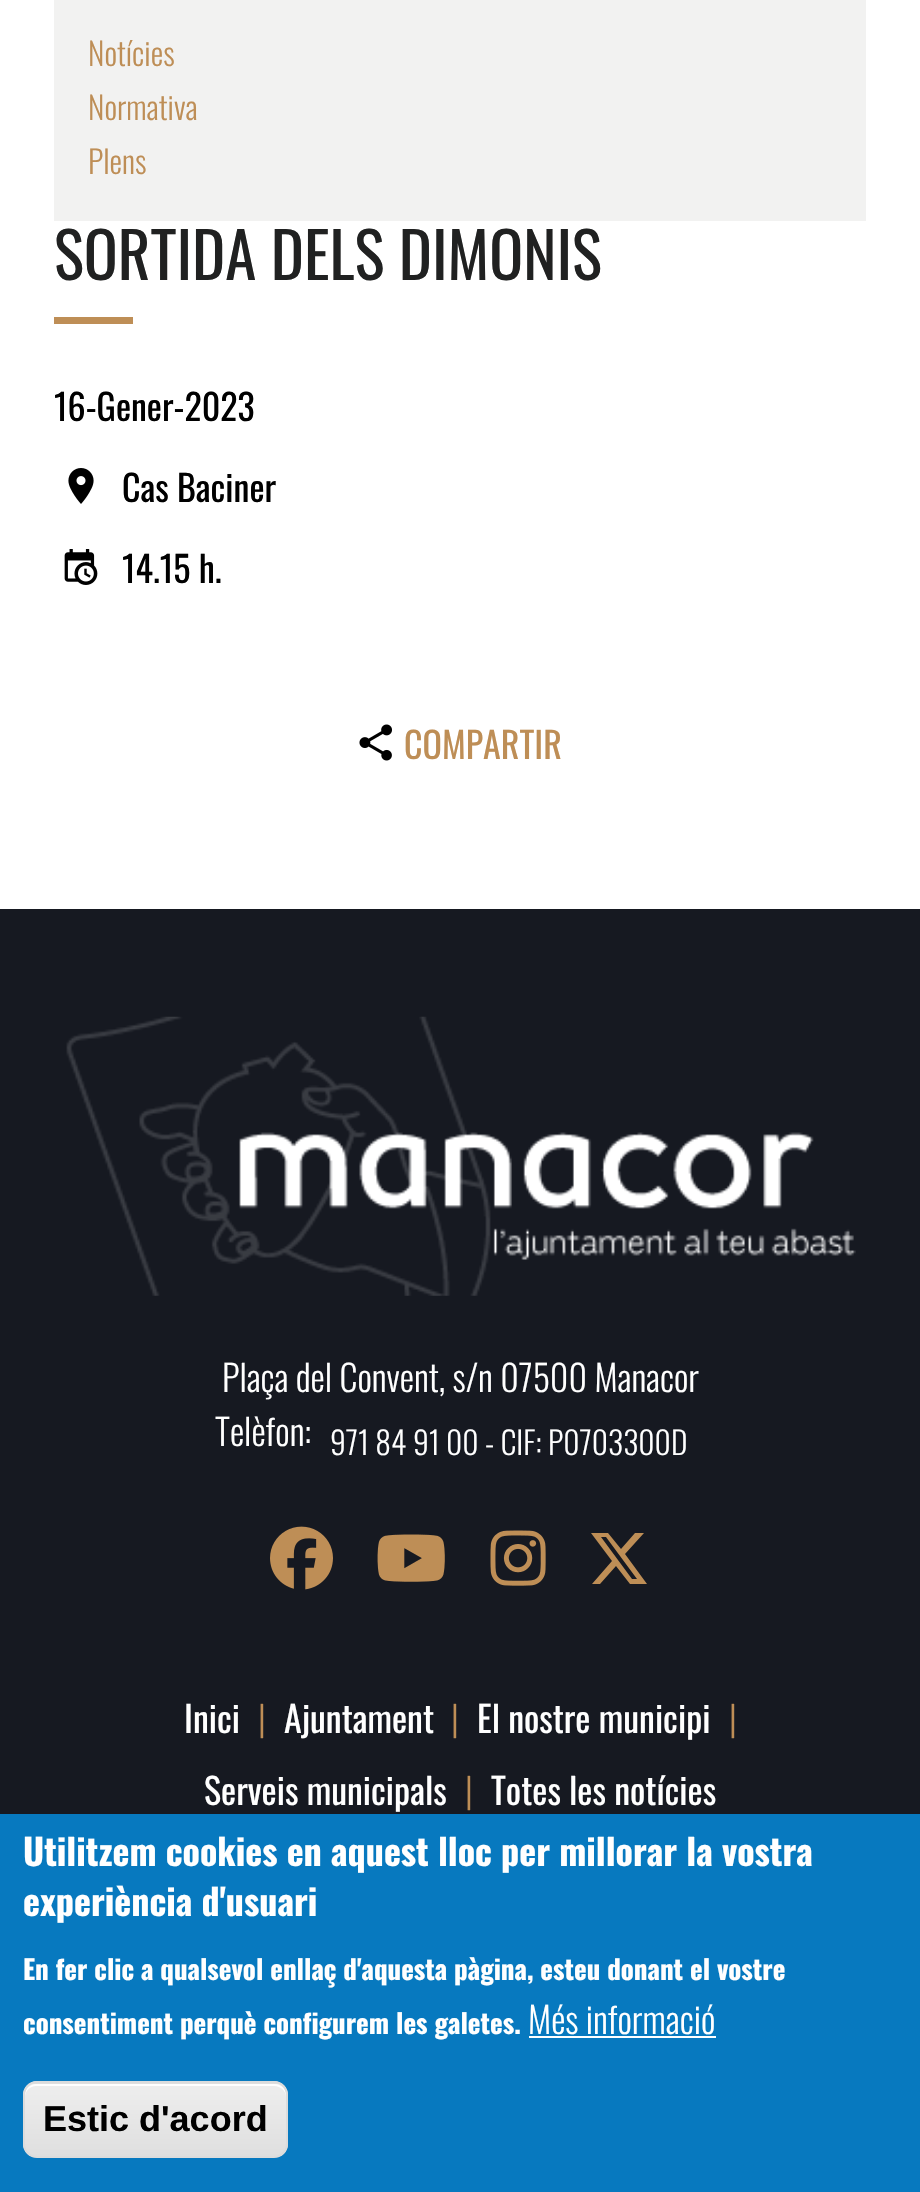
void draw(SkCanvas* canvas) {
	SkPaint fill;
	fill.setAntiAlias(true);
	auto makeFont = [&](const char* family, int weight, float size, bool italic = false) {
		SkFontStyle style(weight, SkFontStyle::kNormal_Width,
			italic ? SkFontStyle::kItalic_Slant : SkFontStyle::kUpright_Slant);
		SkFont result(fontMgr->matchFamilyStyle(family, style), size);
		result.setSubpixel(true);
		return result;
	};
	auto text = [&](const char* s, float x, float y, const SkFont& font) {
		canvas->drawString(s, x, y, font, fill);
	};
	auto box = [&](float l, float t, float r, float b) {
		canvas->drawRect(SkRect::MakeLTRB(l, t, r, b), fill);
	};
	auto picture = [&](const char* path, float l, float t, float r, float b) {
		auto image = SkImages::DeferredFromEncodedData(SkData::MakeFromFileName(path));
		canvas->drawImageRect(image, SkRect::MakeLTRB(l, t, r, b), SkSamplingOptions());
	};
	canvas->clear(0xFF161921);
	fill.setColor(0xFFFFFFFF);
	box(0, 0, 920, 909);
	fill.setColor(0xFFF2F2F1);
	box(54, 0, 866, 221);
	fill.setColor(0xFFBE8E56);
	box(54, 317, 133, 324);
	picture("image0.png", 68, 468, 94, 504);
	picture("image1.png", 64, 549, 98, 585);
	picture("image2.png", 359, 724, 392, 761);
	picture("image3.png", 66, 1016, 856, 1296);
	picture("image4.png", 270, 1526, 333, 1590);
	picture("image5.png", 377, 1534, 445, 1582);
	picture("image6.png", 490, 1530, 546, 1586);
	canvas->drawPath(SkPathBuilder().moveTo(635, 1533).lineTo(644, 1533).lineTo(635, 1533).lineTo(644, 1533).lineTo(625, 1554).lineTo(647, 1584).lineTo(630, 1584).lineTo(616, 1566).lineTo(600, 1584).lineTo(592, 1584).lineTo(612, 1561).lineTo(591, 1533).lineTo(608, 1533).lineTo(621, 1549).close().moveTo(632, 1579).lineTo(637, 1579).lineTo(632, 1579).lineTo(637, 1579).lineTo(606, 1537).lineTo(601, 1537).close().detach(), fill);
	fill.setColor(0xFF0779BF);
	box(0, 1814, 920, 2192);
	fill.setColor(0xFFFFFFFF);
	box(529, 2036, 716, 2038);
	canvas->save();
	canvas->clipPath(SkPathBuilder().moveTo(37, 2081).lineTo(274, 2081).cubicTo(281.5f, 2081, 288, 2087.5f, 288, 2095).lineTo(288, 2144).cubicTo(288, 2151.5f, 281.5f, 2158, 274, 2158).lineTo(37, 2158).cubicTo(29.5f, 2158, 23, 2151.5f, 23, 2144).lineTo(23, 2095).cubicTo(23, 2087.5f, 29.5f, 2081, 37, 2081).close().detach(), true);
	{
		const SkColor colors[] = {0xFFEDEDED, 0xFFDFDFDF};
		const float stops[] = {0.05f, 1};
		const SkPoint ends[] = {{155, 2012}, {155, 2084}};
		fill.setShader(SkGradientShader::MakeLinear(ends, colors, stops, 2, SkTileMode::kClamp));
		fill.setAlpha(255);
	}
	box(23, 2081, 288, 2084);
	{
		const SkColor colors[] = {0xFFEDEDED, 0xFFDFDFDF};
		const float stops[] = {0.05f, 1};
		const SkPoint ends[] = {{155, 2084}, {155, 2156}};
		fill.setShader(SkGradientShader::MakeLinear(ends, colors, stops, 2, SkTileMode::kClamp));
		fill.setAlpha(255);
	}
	box(23, 2084, 288, 2156);
	canvas->restore();
	fill.setShader(nullptr);
	fill.setColor(0xFFFFFFFF);
	canvas->drawPath(SkPathBuilder().moveTo(36, 2086).lineTo(274, 2086).cubicTo(281, 2086, 286, 2091, 286, 2097).lineTo(286, 2095).cubicTo(286, 2089, 281, 2084, 275, 2084).lineTo(36, 2084).cubicTo(30, 2084, 25, 2089, 25, 2095).lineTo(25, 2097).cubicTo(25, 2091, 30, 2086, 36, 2086).close().detach(), fill);
	fill.setStyle(SkPaint::kStroke_Style);
	fill.setStrokeWidth(2);
	fill.setColor(0xFFDCDCDC);
	canvas->drawRoundRect(SkRect::MakeLTRB(24, 2082, 287, 2157), 13, 13, fill);
	auto font1 = makeFont("Oswald", 300, 31.5f);
	fill.setStyle(SkPaint::kFill_Style);
	fill.setColor(0xFFBE8E56);
	text("Notícies", 88, 66, font1);
	text("Normativa", 88, 120, font1);
	text("Plens", 88, 174, font1);
	auto font2 = makeFont("Oswald", 400, 63);
	fill.setColor(0xFF202121);
	text("SORTIDA DELS DIMONIS", 54, 280, font2);
	auto font3 = makeFont("Oswald", 400, 36);
	fill.setColor(0xFF000000);
	text("16-Gener-2023", 54, 421, font3);
	text("Cas Baciner", 122, 502, font3);
	text("14.15 h.", 122, 583, font3);
	fill.setColor(0xFFBE8E56);
	text("COMPARTIR", 404, 759, font3);
	auto font4 = makeFont("Oswald", 300, 36);
	fill.setColor(0xFFFFFFFF);
	text("Plaça del Convent, s/n 07500 Manacor", 222, 1392, font4);
	text("Telèfon:", 215, 1446, font4);
	text("971 84 91 00 - CIF: P0703300D", 330, 1455, font1);
	text("Inici", 184, 1733, font3);
	fill.setColor(0xFFBE8E56);
	text("|", 258, 1733, font4);
	fill.setColor(0xFFFFFFFF);
	text("Ajuntament", 284, 1733, font3);
	fill.setColor(0xFFBE8E56);
	text("|", 451, 1733, font4);
	fill.setColor(0xFFFFFFFF);
	text("El nostre municipi", 477, 1733, font3);
	fill.setColor(0xFFBE8E56);
	text("|", 729, 1733, font4);
	fill.setColor(0xFFFFFFFF);
	text("Serveis municipals", 204, 1805, font3);
	fill.setColor(0xFFBE8E56);
	text("|", 465, 1805, font4);
	fill.setColor(0xFFFFFFFF);
	text("Totes les notícies", 491, 1805, font3);
	auto font5 = makeFont("Oswald", 700, 36);
	text("Utilitzem cookies en aquest lloc per millorar la vostra", 23, 1866, font5);
	text("experiència d'usuari", 23, 1916, font5);
	auto font6 = makeFont("Oswald", 700, 27);
	text("En fer clic a qualsevol enllaç d'aquesta pàgina, esteu donant el vostre", 23, 1980, font6);
	text("consentiment perquè configurem les galetes.", 23, 2034, font6);
	text("Més informació", 528, 2034, font4);
	auto font7 = makeFont("Liberation Sans", 700, 36);
	fill.setColor(0xFF000000);
	text("Estic d'acord", 43, 2131, font7);
}
